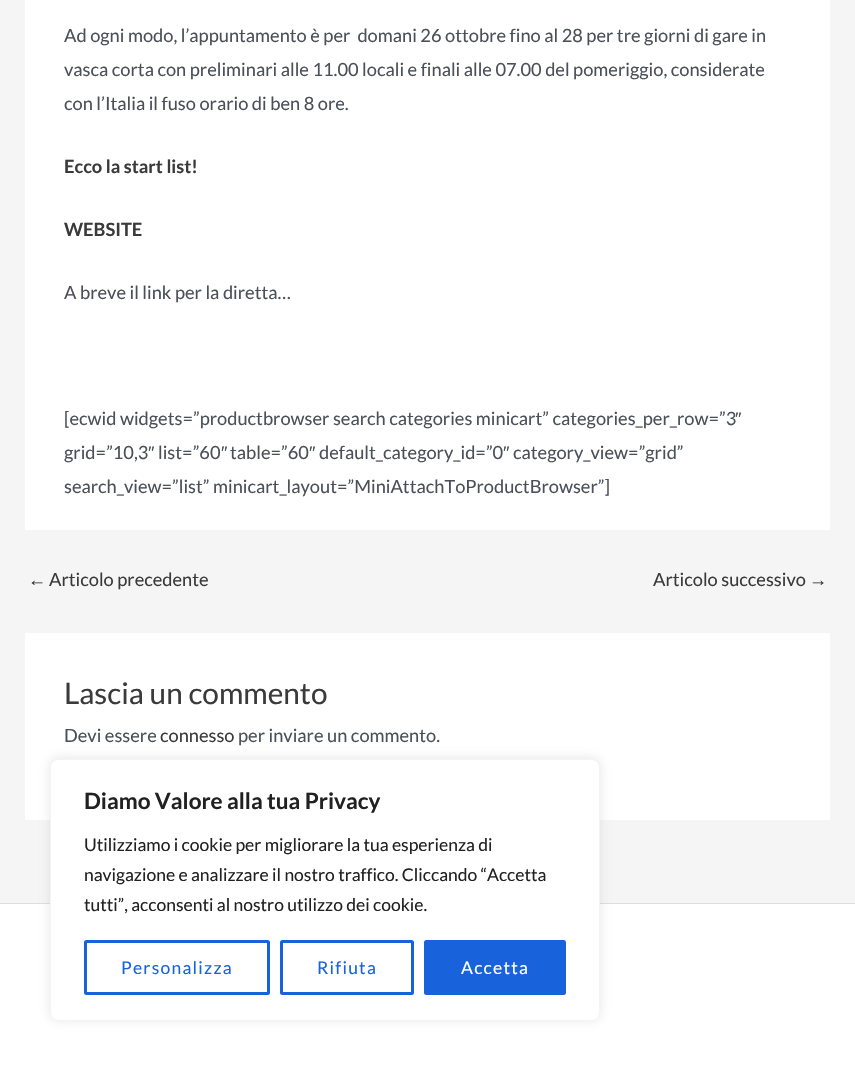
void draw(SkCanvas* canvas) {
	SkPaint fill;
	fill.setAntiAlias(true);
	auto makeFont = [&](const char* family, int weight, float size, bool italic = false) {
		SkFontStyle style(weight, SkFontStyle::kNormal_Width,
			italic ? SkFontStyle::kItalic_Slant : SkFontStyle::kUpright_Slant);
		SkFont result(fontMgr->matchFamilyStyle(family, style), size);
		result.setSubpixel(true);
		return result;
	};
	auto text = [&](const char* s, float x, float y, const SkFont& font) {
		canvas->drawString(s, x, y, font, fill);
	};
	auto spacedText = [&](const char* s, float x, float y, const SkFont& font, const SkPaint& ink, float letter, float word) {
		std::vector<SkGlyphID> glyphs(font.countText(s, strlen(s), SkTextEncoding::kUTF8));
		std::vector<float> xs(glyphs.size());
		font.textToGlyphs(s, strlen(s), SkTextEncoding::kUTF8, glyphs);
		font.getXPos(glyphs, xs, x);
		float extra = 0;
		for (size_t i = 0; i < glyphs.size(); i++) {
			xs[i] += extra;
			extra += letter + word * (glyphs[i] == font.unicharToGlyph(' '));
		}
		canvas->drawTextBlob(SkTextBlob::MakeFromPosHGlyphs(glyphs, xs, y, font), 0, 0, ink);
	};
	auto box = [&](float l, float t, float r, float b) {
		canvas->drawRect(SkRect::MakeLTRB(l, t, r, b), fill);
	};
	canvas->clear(0xFFF5F5F5);
	fill.setColor(0xFFFFFFFF);
	box(25, 0, 830, 530);
	box(25, 633, 830, 820);
	box(0, 904, 855, 1071);
	fill.setColor(0xFFDDDDDD);
	box(0, 903, 855, 904);
	fill.setColor(0x4DACABAB);
	fill.setMaskFilter(SkMaskFilter::MakeBlur(kNormal_SkBlurStyle, 6));
	canvas->drawRoundRect(SkRect::MakeLTRB(50, 758, 600, 1020), 8, 8, fill);
	fill.setMaskFilter(nullptr);
	fill.setColor(0xFFFFFFFF);
	canvas->drawRoundRect(SkRect::MakeLTRB(50.5f, 759.5f, 599.5f, 1020.5f), 7.5f, 7.5f, fill);
	fill.setStyle(SkPaint::kStroke_Style);
	fill.setStrokeWidth(1);
	fill.setColor(0xFFF4F4F4);
	canvas->drawRoundRect(SkRect::MakeLTRB(50.5f, 759.5f, 599.5f, 1020.5f), 7.5f, 7.5f, fill);
	fill.setStrokeWidth(3);
	fill.setColor(0xFF1863DC);
	canvas->drawRoundRect(SkRect::MakeLTRB(85.5f, 941.5f, 268.5f, 993.5f), 1, 1, fill);
	canvas->drawRoundRect(SkRect::MakeLTRB(281.5f, 941.5f, 412.5f, 993.5f), 1, 1, fill);
	fill.setStyle(SkPaint::kFill_Style);
	canvas->drawRoundRect(SkRect::MakeLTRB(425.5f, 941.5f, 564.5f, 993.5f), 1, 1, fill);
	fill.setStyle(SkPaint::kStroke_Style);
	canvas->drawRoundRect(SkRect::MakeLTRB(425.5f, 941.5f, 564.5f, 993.5f), 1, 1, fill);
	auto font1 = makeFont("Lato", 400, 18.25f);
	fill.setStyle(SkPaint::kFill_Style);
	fill.setColor(0xFF4B4F58);
	text("Ad ogni modo, l’appuntamento è per  domani 26 ottobre fino al 28 per tre giorni di gare in", 64, 42, font1);
	text("vasca corta con preliminari alle 11.00 locali e finali alle 07.00 del pomeriggio, considerate", 64, 76, font1);
	text("con l’Italia il fuso orario di ben 8 ore.", 64, 110, font1);
	auto font2 = makeFont("Lato", 700, 18.25f);
	fill.setColor(0xFF3A3A3A);
	text("Ecco la start list!", 64, 173, font2);
	text("WEBSITE", 64, 236, font2);
	fill.setColor(0xFF4B4F58);
	text("A breve il link per la diretta…", 64, 299, font1);
	text("[ecwid widgets=”productbrowser search categories minicart” categories_per_row=”3", 64, 425, font1);
	auto font3 = makeFont("Liberation Sans", 400, 18.25f);
	text("″", 735, 425, font3);
	text("grid=”10,3", 64, 459, font1);
	text("″", 148, 459, font3);
	text("list=”60", 158, 459, font1);
	text("″", 221, 459, font3);
	text("table=”60", 230, 459, font1);
	text("″", 309, 459, font3);
	text("default_category_id=”0", 319, 459, font1);
	text("″", 503, 459, font3);
	text("category_view=”grid”", 513, 459, font1);
	text("search_view=”list” minicart_layout=”MiniAttachToProductBrowser”]", 64, 493, font1);
	fill.setColor(0xFF3A3A3A);
	text("←", 28, 586, font3);
	text("Articolo precedente", 49, 586, font1);
	text("Articolo successivo", 653, 586, font1);
	text("→", 809, 586, font3);
	auto font4 = makeFont("Lato", 400, 29.75f);
	text("Lascia un commento", 64, 704, font4);
	fill.setColor(0xFF4B4F58);
	text("Devi essere", 64, 742, font1);
	fill.setColor(0xFF3A3A3A);
	text("connesso", 160, 742, font1);
	fill.setColor(0xFF4B4F58);
	text("per inviare un commento.", 238, 742, font1);
	auto font5 = makeFont("Lato", 700, 22.5f);
	fill.setColor(0xFF212121);
	text("Diamo Valore alla tua Privacy", 84, 809, font5);
	auto font6 = makeFont("Lato", 400, 17.5f);
	text("Utilizziamo i cookie per migliorare la tua esperienza di", 84, 851, font6);
	text("navigazione e analizzare il nostro traffico. Cliccando “Accetta", 84, 881, font6);
	text("tutti”, acconsenti al nostro utilizzo dei cookie.", 84, 911, font6);
	fill.setColor(0xFF1863DC);
	spacedText("Personalizza", 121, 974, font6, fill, 1.25f, 0);
	spacedText("Rifiuta", 317, 974, font6, fill, 1.25f, 0);
	fill.setColor(0xFFFFFFFF);
	spacedText("Accetta", 461, 974, font6, fill, 1.25f, 0);
}
